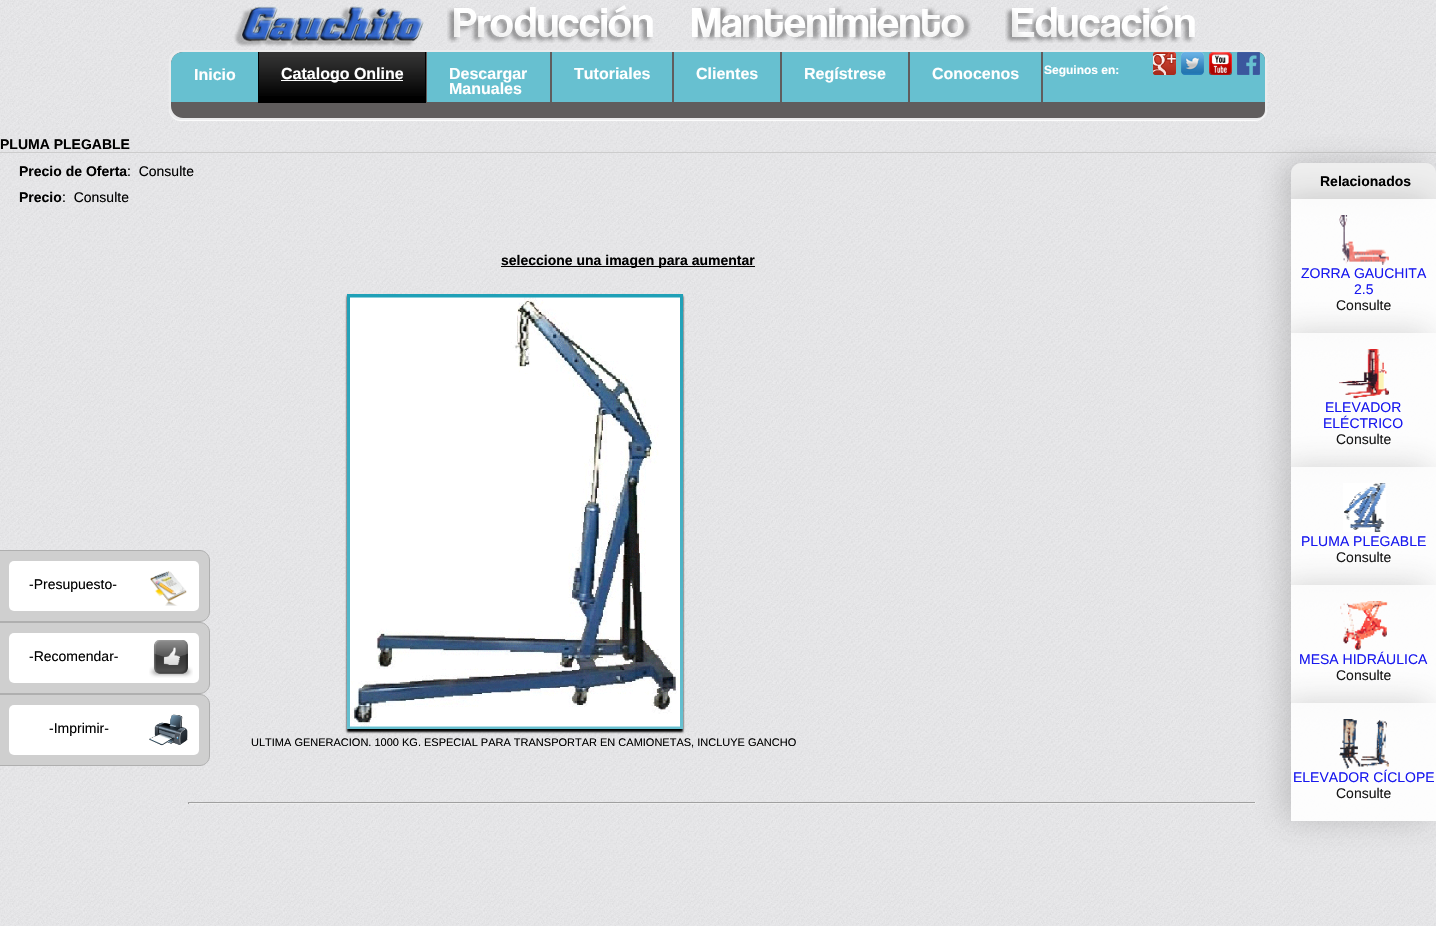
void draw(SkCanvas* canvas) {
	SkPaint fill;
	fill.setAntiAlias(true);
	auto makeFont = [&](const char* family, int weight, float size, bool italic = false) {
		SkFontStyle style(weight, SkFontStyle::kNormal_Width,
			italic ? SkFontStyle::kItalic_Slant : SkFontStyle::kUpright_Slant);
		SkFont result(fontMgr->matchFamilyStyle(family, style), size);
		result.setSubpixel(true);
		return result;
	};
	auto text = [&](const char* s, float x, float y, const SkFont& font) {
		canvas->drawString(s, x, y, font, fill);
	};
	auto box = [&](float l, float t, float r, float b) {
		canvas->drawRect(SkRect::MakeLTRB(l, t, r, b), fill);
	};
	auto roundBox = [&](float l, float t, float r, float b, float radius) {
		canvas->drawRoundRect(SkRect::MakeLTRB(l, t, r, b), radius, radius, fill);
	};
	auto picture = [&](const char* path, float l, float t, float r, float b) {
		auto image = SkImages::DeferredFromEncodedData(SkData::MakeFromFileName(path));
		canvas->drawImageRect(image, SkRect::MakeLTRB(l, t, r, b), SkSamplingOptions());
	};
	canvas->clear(0xFFFFFFFF);
	picture("image0.png", 0, 0, 1436, 926);
	picture("image1.png", 234, 6, 424, 47);
	picture("image2.png", 447, 5, 653, 43);
	picture("image3.png", 692, 6, 972, 41);
	picture("image4.png", 1005, 5, 1195, 43);
	fill.setColor(0xFFFFFFFF);
	fill.setMaskFilter(SkMaskFilter::MakeBlur(kNormal_SkBlurStyle, 0.5f));
	canvas->drawRoundRect(SkRect::MakeLTRB(169, 51, 1267, 121), 12, 12, fill);
	fill.setMaskFilter(nullptr);
	fill.setColor(0xFFEBEBEC);
	roundBox(169, 50, 1267, 120, 12);
	fill.setColor(0xFF605D5D);
	canvas->drawPath(SkPathBuilder().moveTo(183, 52).lineTo(1257, 52).cubicTo(1261.5f, 52, 1265, 55.5f, 1265, 60).lineTo(1265, 110).cubicTo(1265, 114.5f, 1261.5f, 118, 1257, 118).lineTo(183, 118).cubicTo(176.5f, 118, 171, 112.5f, 171, 106).lineTo(171, 64).cubicTo(171, 57.5f, 176.5f, 52, 183, 52).close().detach(), fill);
	picture("image5.png", 171, 52, 1265, 102);
	box(1042, 52, 1043, 102);
	fill.setColor(0xFF000000);
	box(259, 96, 425, 103);
	picture("image6.png", 259, 52, 425, 96);
	box(425, 52, 426, 103);
	box(258, 52, 259, 103);
	fill.setColor(0xFFFFFFFF);
	box(281, 80, 403, 81);
	fill.setColor(0xFF605D5D);
	box(550, 52, 551, 102);
	box(426, 52, 427, 102);
	box(672, 52, 674, 103);
	box(551, 52, 552, 103);
	box(780, 52, 782, 103);
	box(908, 52, 910, 103);
	box(1041, 52, 1042, 103);
	picture("image7.png", 1153, 52, 1176, 75);
	picture("image8.png", 1181, 52, 1204, 75);
	picture("image9.png", 1209, 52, 1232, 75);
	picture("image10.png", 1237, 52, 1260, 75);
	fill.setColor(0xFFCCCCCC);
	box(0, 152, 1436, 153);
	fill.setColor(0xFF000000);
	box(501, 266, 755, 267);
	fill.setColor(0xFFCFCFCF);
	canvas->drawPath(SkPathBuilder().moveTo(-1.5f, 550.5f).lineTo(200, 550.5f).cubicTo(205, 550.5f, 209.5f, 555, 209.5f, 560).lineTo(209.5f, 612).cubicTo(209.5f, 617, 205, 621.5f, 200, 621.5f).lineTo(-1.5f, 621.5f).close().detach(), fill);
	fill.setStyle(SkPaint::kStroke_Style);
	fill.setStrokeWidth(1);
	fill.setColor(0xFFAFAFAF);
	canvas->drawPath(SkPathBuilder().moveTo(-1.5f, 550.5f).lineTo(200, 550.5f).cubicTo(205, 550.5f, 209.5f, 555, 209.5f, 560).lineTo(209.5f, 612).cubicTo(209.5f, 617, 205, 621.5f, 200, 621.5f).lineTo(-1.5f, 621.5f).close().detach(), fill);
	fill.setStyle(SkPaint::kFill_Style);
	fill.setColor(0xFFFFFFFF);
	roundBox(9, 561, 199, 611, 5);
	picture("image11.png", 150, 571, 187, 606);
	fill.setColor(0xFFCFCFCF);
	canvas->drawPath(SkPathBuilder().moveTo(-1.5f, 622.5f).lineTo(200, 622.5f).cubicTo(205, 622.5f, 209.5f, 627, 209.5f, 632).lineTo(209.5f, 684).cubicTo(209.5f, 689, 205, 693.5f, 200, 693.5f).lineTo(-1.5f, 693.5f).close().detach(), fill);
	fill.setStyle(SkPaint::kStroke_Style);
	fill.setColor(0xFFAFAFAF);
	canvas->drawPath(SkPathBuilder().moveTo(-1.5f, 622.5f).lineTo(200, 622.5f).cubicTo(205, 622.5f, 209.5f, 627, 209.5f, 632).lineTo(209.5f, 684).cubicTo(209.5f, 689, 205, 693.5f, 200, 693.5f).lineTo(-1.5f, 693.5f).close().detach(), fill);
	fill.setStyle(SkPaint::kFill_Style);
	fill.setColor(0xFFFFFFFF);
	roundBox(9, 633, 199, 683, 5);
	picture("image12.png", 149, 640, 193, 678);
	fill.setColor(0xFFCFCFCF);
	canvas->drawPath(SkPathBuilder().moveTo(-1.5f, 694.5f).lineTo(200, 694.5f).cubicTo(205, 694.5f, 209.5f, 699, 209.5f, 704).lineTo(209.5f, 756).cubicTo(209.5f, 761, 205, 765.5f, 200, 765.5f).lineTo(-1.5f, 765.5f).close().detach(), fill);
	fill.setStyle(SkPaint::kStroke_Style);
	fill.setColor(0xFFAFAFAF);
	canvas->drawPath(SkPathBuilder().moveTo(-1.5f, 694.5f).lineTo(200, 694.5f).cubicTo(205, 694.5f, 209.5f, 699, 209.5f, 704).lineTo(209.5f, 756).cubicTo(209.5f, 761, 205, 765.5f, 200, 765.5f).lineTo(-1.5f, 765.5f).close().detach(), fill);
	fill.setStyle(SkPaint::kFill_Style);
	fill.setColor(0xFFFFFFFF);
	roundBox(9, 705, 199, 755, 5);
	picture("image13.png", 149, 714, 188, 746);
	fill.setColor(0xFF000000);
	fill.setMaskFilter(SkMaskFilter::MakeBlur(kNormal_SkBlurStyle, 1));
	canvas->drawRect(SkRect::MakeLTRB(347, 296, 683, 732), fill);
	fill.setMaskFilter(nullptr);
	{
		const SkColor colors[] = {0xFF1FA0B7, 0xFF67C0D0};
		const float stops[] = {0.01f, 1};
		const SkPoint ends[] = {{515, 294}, {515, 729}};
		fill.setShader(SkGradientShader::MakeLinear(ends, colors, stops, 2, SkTileMode::kClamp));
		fill.setAlpha(255);
	}
	box(347, 294, 683, 729);
	picture("image14.png", 350, 297, 680, 727);
	fill.setShader(nullptr);
	fill.setColor(0xFF9F9F9F);
	box(188, 802, 1256, 803);
	fill.setColor(0xFFEEEEEE);
	box(1255, 802, 1256, 804);
	box(188, 803, 1256, 804);
	fill.setColor(0xFF9F9F9F);
	box(188, 802, 189, 804);
	fill.setColor(0x3D323232);
	fill.setMaskFilter(SkMaskFilter::MakeBlur(kNormal_SkBlurStyle, 15));
	canvas->drawRoundRect(SkRect::MakeLTRB(1284, 163, 1429, 199), 10, 10, fill);
	fill.setMaskFilter(nullptr);
	fill.setColor(0xFFEEEEEE);
	canvas->drawPath(SkPathBuilder().moveTo(1301, 163).lineTo(1426, 163).cubicTo(1431.5f, 163, 1436, 167.5f, 1436, 173).lineTo(1436, 199).lineTo(1291, 199).lineTo(1291, 173).cubicTo(1291, 167.5f, 1295.5f, 163, 1301, 163).close().detach(), fill);
	canvas->save();
	canvas->clipPath(SkPathBuilder(SkPathFillType::kEvenOdd).moveTo(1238, 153).lineTo(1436, 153).lineTo(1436, 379).lineTo(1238, 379).close().moveTo(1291, 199).lineTo(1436, 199).lineTo(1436, 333).lineTo(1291, 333).close().detach(), true);
	fill.setColor(0x38323232);
	fill.setMaskFilter(SkMaskFilter::MakeBlur(kNormal_SkBlurStyle, 15));
	canvas->drawRect(SkRect::MakeLTRB(1284, 199, 1429, 333), fill);
	fill.setMaskFilter(nullptr);
	canvas->restore();
	fill.setColor(0xE6FFFFFF);
	box(1291, 199, 1436, 333);
	picture("image15.png", 1339, 215, 1389, 265);
	canvas->save();
	canvas->clipPath(SkPathBuilder(SkPathFillType::kEvenOdd).moveTo(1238, 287).lineTo(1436, 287).lineTo(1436, 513).lineTo(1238, 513).close().moveTo(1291, 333).lineTo(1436, 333).lineTo(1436, 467).lineTo(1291, 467).close().detach(), true);
	fill.setColor(0x38323232);
	fill.setMaskFilter(SkMaskFilter::MakeBlur(kNormal_SkBlurStyle, 15));
	canvas->drawRect(SkRect::MakeLTRB(1284, 333, 1429, 467), fill);
	fill.setMaskFilter(nullptr);
	canvas->restore();
	fill.setColor(0xE6FFFFFF);
	box(1291, 333, 1436, 467);
	picture("image16.png", 1339, 349, 1389, 399);
	canvas->save();
	canvas->clipPath(SkPathBuilder(SkPathFillType::kEvenOdd).moveTo(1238, 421).lineTo(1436, 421).lineTo(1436, 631).lineTo(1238, 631).close().moveTo(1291, 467).lineTo(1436, 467).lineTo(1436, 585).lineTo(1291, 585).close().detach(), true);
	fill.setColor(0x38323232);
	fill.setMaskFilter(SkMaskFilter::MakeBlur(kNormal_SkBlurStyle, 15));
	canvas->drawRect(SkRect::MakeLTRB(1284, 467, 1429, 585), fill);
	fill.setMaskFilter(nullptr);
	canvas->restore();
	fill.setColor(0xE6FFFFFF);
	box(1291, 467, 1436, 585);
	picture("image17.png", 1343, 483, 1386, 532);
	canvas->save();
	canvas->clipPath(SkPathBuilder(SkPathFillType::kEvenOdd).moveTo(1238, 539).lineTo(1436, 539).lineTo(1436, 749).lineTo(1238, 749).close().moveTo(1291, 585).lineTo(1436, 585).lineTo(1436, 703).lineTo(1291, 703).close().detach(), true);
	fill.setColor(0x38323232);
	fill.setMaskFilter(SkMaskFilter::MakeBlur(kNormal_SkBlurStyle, 15));
	canvas->drawRect(SkRect::MakeLTRB(1284, 585, 1429, 703), fill);
	fill.setMaskFilter(nullptr);
	canvas->restore();
	fill.setColor(0xE6FFFFFF);
	box(1291, 585, 1436, 703);
	picture("image18.png", 1340, 601, 1388, 651);
	canvas->save();
	canvas->clipPath(SkPathBuilder(SkPathFillType::kEvenOdd).moveTo(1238, 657).lineTo(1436, 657).lineTo(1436, 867).lineTo(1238, 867).close().moveTo(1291, 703).lineTo(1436, 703).lineTo(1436, 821).lineTo(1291, 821).close().detach(), true);
	fill.setColor(0x38323232);
	fill.setMaskFilter(SkMaskFilter::MakeBlur(kNormal_SkBlurStyle, 15));
	canvas->drawRect(SkRect::MakeLTRB(1284, 703, 1429, 821), fill);
	fill.setMaskFilter(nullptr);
	canvas->restore();
	fill.setColor(0xE6FFFFFF);
	box(1291, 703, 1436, 821);
	picture("image19.png", 1339, 719, 1389, 769);
	auto font1 = makeFont("Liberation Sans", 700, 16);
	fill.setColor(0xFFFFFFFF);
	text("Inicio", 194, 80, font1);
	text("Catalogo Online", 281, 79, font1);
	text("Descargar", 449, 79, font1);
	text("Manuales", 449, 94, font1);
	text("Tutoriales", 574, 79, font1);
	text("Clientes", 696, 79, font1);
	text("Regístrese", 804, 79, font1);
	text("Conocenos", 932, 79, font1);
	auto font2 = makeFont("Liberation Sans", 700, 12);
	text("Seguinos en:", 1044, 74, font2);
	auto font3 = makeFont("Liberation Sans", 700, 14);
	fill.setColor(0xFF000000);
	text("PLUMA PLEGABLE", 0, 149, font3);
	text("Precio de Oferta", 19, 176, font3);
	auto font4 = makeFont("Liberation Sans", 400, 14);
	text(":  Consulte", 127, 176, font4);
	text("Precio", 19, 202, font3);
	text(":  Consulte", 62, 202, font4);
	text("seleccione una imagen para aumentar", 501, 265, font3);
	text("-Presupuesto-", 29, 589, font4);
	text("-Recomendar-", 29, 661, font4);
	text("-Imprimir-", 49, 733, font4);
	auto font5 = makeFont("Liberation Sans", 400, 11);
	text("ULTIMA GENERACION. 1000 KG. ESPECIAL PARA TRANSPORTAR EN CAMIONETAS, INCLUYE GANCHO", 251, 746, font5);
	text("Relacionados", 1320, 186, font3);
	fill.setColor(0xFF1919EF);
	text("ZORRA GAUCHITA", 1301, 278, font4);
	text("2.5", 1354, 294, font4);
	fill.setColor(0xFF191919);
	text("Consulte", 1336, 310, font4);
	fill.setColor(0xFF1919EF);
	text("ELEVADOR", 1325, 412, font4);
	text("ELÉCTRICO", 1323, 428, font4);
	fill.setColor(0xFF191919);
	text("Consulte", 1336, 444, font4);
	fill.setColor(0xFF1919EF);
	text("PLUMA PLEGABLE", 1301, 546, font4);
	fill.setColor(0xFF191919);
	text("Consulte", 1336, 562, font4);
	fill.setColor(0xFF1919EF);
	text("MESA HIDRÁULICA", 1299, 664, font4);
	fill.setColor(0xFF191919);
	text("Consulte", 1336, 680, font4);
	fill.setColor(0xFF1919EF);
	text("ELEVADOR CÍCLOPE", 1293, 782, font4);
	fill.setColor(0xFF191919);
	text("Consulte", 1336, 798, font4);
}
